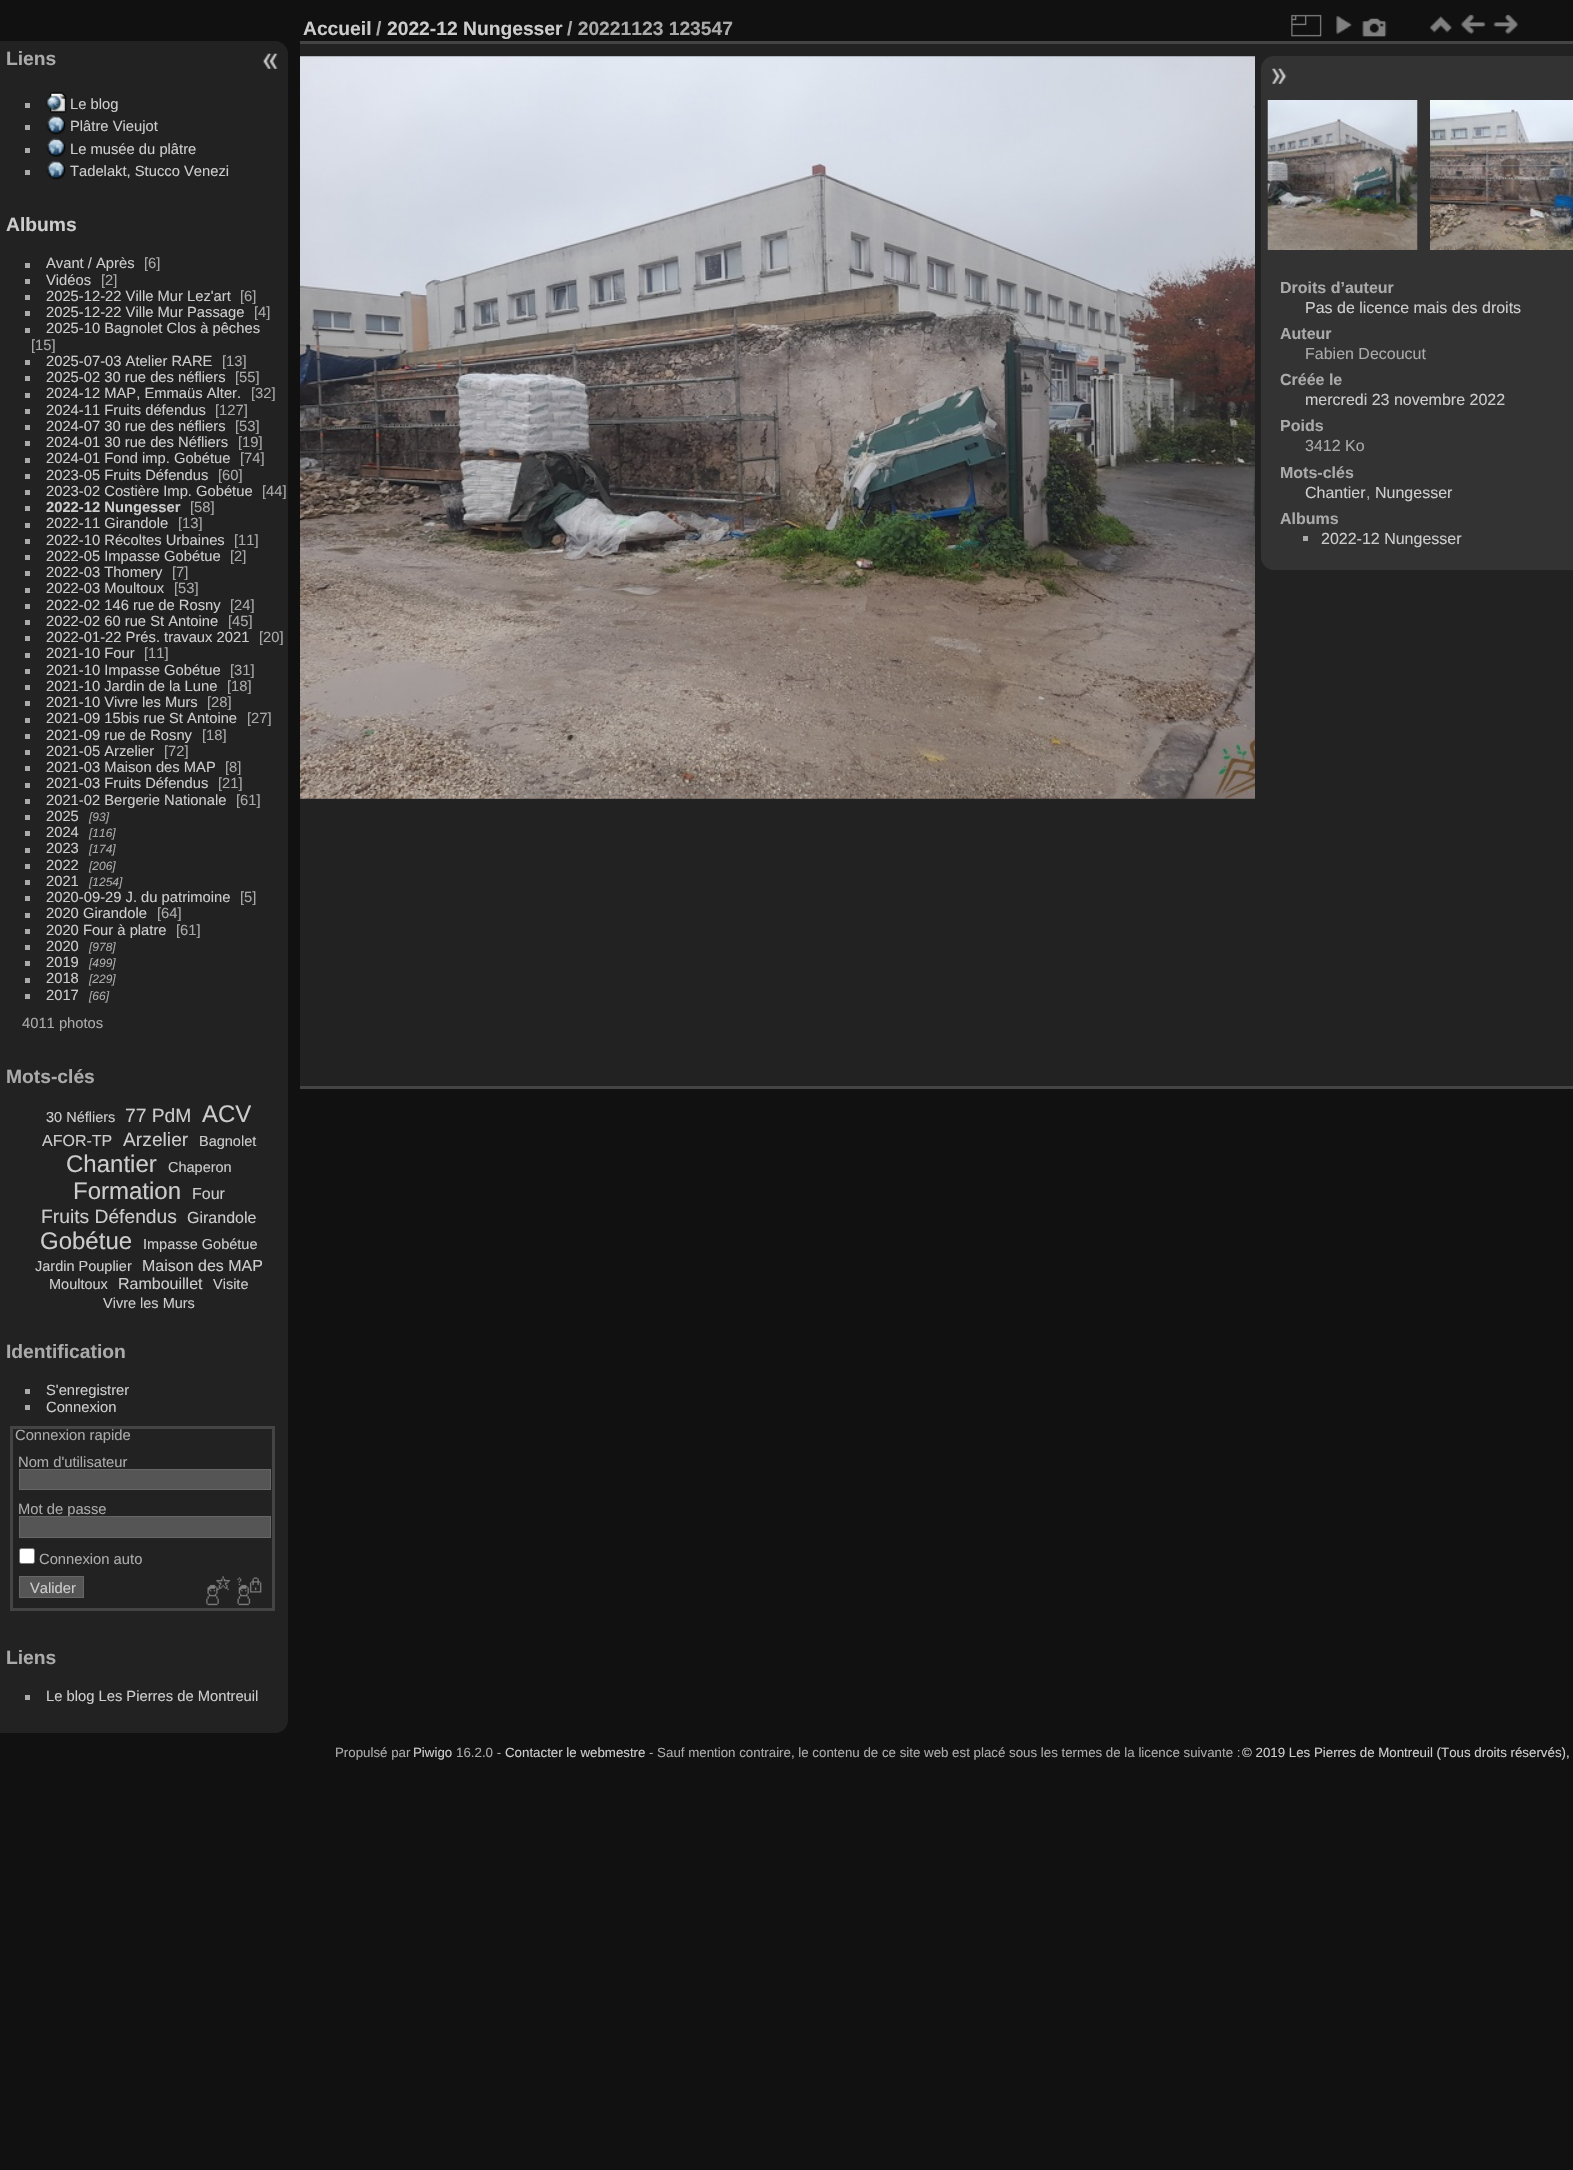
void draw(SkCanvas* canvas) {
	SkPaint fill;
	fill.setAntiAlias(true);
	auto makeFont = [&](const char* family, int weight, float size, bool italic = false) {
		SkFontStyle style(weight, SkFontStyle::kNormal_Width,
			italic ? SkFontStyle::kItalic_Slant : SkFontStyle::kUpright_Slant);
		SkFont result(fontMgr->matchFamilyStyle(family, style), size);
		result.setSubpixel(true);
		return result;
	};
	auto text = [&](const char* s, float x, float y, const SkFont& font) {
		canvas->drawString(s, x, y, font, fill);
	};
	auto box = [&](float l, float t, float r, float b) {
		canvas->drawRect(SkRect::MakeLTRB(l, t, r, b), fill);
	};
	auto picture = [&](const char* path, float l, float t, float r, float b) {
		auto image = SkImages::DeferredFromEncodedData(SkData::MakeFromFileName(path));
		canvas->drawImageRect(image, SkRect::MakeLTRB(l, t, r, b), SkSamplingOptions());
	};
	canvas->clear(0xFF111111);
	fill.setColor(0xFF222222);
	canvas->drawPath(SkPathBuilder().moveTo(0, 41).lineTo(275, 41).cubicTo(282, 41, 288, 47, 288, 54).lineTo(288, 1720).cubicTo(288, 1727, 282, 1733, 275, 1733).lineTo(0, 1733).close().detach(), fill);
	fill.setColor(0xFFAAAAAA);
	box(25, 103, 30, 108);
	picture("image0.png", 46, 92, 67, 113);
	box(25, 125, 30, 130);
	picture("image1.png", 46, 115, 66, 135);
	box(25, 148, 30, 153);
	picture("image2.png", 46, 137, 66, 157);
	box(25, 170, 30, 175);
	picture("image1.png", 46, 160, 66, 180);
	box(25, 263, 30, 268);
	box(25, 279, 30, 284);
	box(25, 295, 30, 300);
	box(25, 311, 30, 316);
	box(25, 328, 30, 333);
	box(25, 360, 30, 365);
	box(25, 376, 30, 381);
	box(25, 393, 30, 398);
	box(25, 409, 30, 414);
	box(25, 425, 30, 430);
	box(25, 441, 30, 446);
	box(25, 458, 30, 463);
	box(25, 474, 30, 479);
	box(25, 490, 30, 495);
	box(25, 506, 30, 511);
	box(25, 523, 30, 528);
	box(25, 539, 30, 544);
	box(25, 555, 30, 560);
	box(25, 571, 30, 576);
	box(25, 588, 30, 593);
	box(25, 604, 30, 609);
	box(25, 620, 30, 625);
	box(25, 636, 30, 641);
	box(25, 653, 30, 658);
	box(25, 669, 30, 674);
	box(25, 685, 30, 690);
	box(25, 701, 30, 706);
	box(25, 718, 30, 723);
	box(25, 734, 30, 739);
	box(25, 750, 30, 755);
	box(25, 766, 30, 771);
	box(25, 783, 30, 788);
	box(25, 799, 30, 804);
	box(25, 815, 30, 820);
	box(25, 831, 30, 836);
	box(25, 848, 30, 853);
	box(25, 864, 30, 869);
	box(25, 880, 30, 885);
	box(25, 896, 30, 901);
	box(25, 913, 30, 918);
	box(25, 929, 30, 934);
	box(25, 945, 30, 950);
	box(25, 961, 30, 966);
	box(25, 978, 30, 983);
	box(25, 994, 30, 999);
	box(25, 1389, 30, 1394);
	box(25, 1405, 30, 1410);
	fill.setStyle(SkPaint::kStroke_Style);
	fill.setStrokeWidth(3);
	fill.setColor(0xFF444444);
	canvas->drawRect(SkRect::MakeLTRB(11.5f, 1427.5f, 273.5f, 1609.5f), fill);
	fill.setStyle(SkPaint::kFill_Style);
	fill.setColor(0xFF555555);
	canvas->drawRect(SkRect::MakeLTRB(19.5f, 1469.5f, 270.5f, 1489.5f), fill);
	fill.setStyle(SkPaint::kStroke_Style);
	fill.setStrokeWidth(1);
	fill.setColor(0xFF666666);
	canvas->drawRect(SkRect::MakeLTRB(19.5f, 1469.5f, 270.5f, 1489.5f), fill);
	fill.setStyle(SkPaint::kFill_Style);
	fill.setColor(0xFFFFFFFF);
	canvas->drawRoundRect(SkRect::MakeLTRB(19.5f, 1548.5f, 34.5f, 1563.5f), 2, 2, fill);
	fill.setStyle(SkPaint::kStroke_Style);
	fill.setColor(0xFF767676);
	canvas->drawRoundRect(SkRect::MakeLTRB(19.5f, 1548.5f, 34.5f, 1563.5f), 2, 2, fill);
	fill.setStyle(SkPaint::kFill_Style);
	fill.setColor(0xFF555555);
	canvas->drawRect(SkRect::MakeLTRB(19.5f, 1576.5f, 83.5f, 1597.5f), fill);
	fill.setStyle(SkPaint::kStroke_Style);
	fill.setColor(0xFF666666);
	canvas->drawRect(SkRect::MakeLTRB(19.5f, 1576.5f, 83.5f, 1597.5f), fill);
	picture("image3.png", 206, 1576, 231, 1606);
	picture("image4.png", 237, 1577, 262, 1606);
	fill.setStyle(SkPaint::kFill_Style);
	fill.setColor(0xFFAAAAAA);
	box(25, 1695, 30, 1700);
	fill.setColor(0xFF222222);
	box(300, 44, 1573, 1086);
	fill.setColor(0xFF444444);
	box(300, 1086, 1573, 1089);
	box(300, 41, 1573, 44);
	picture("image5.png", 1291, 14, 1322, 37);
	picture("image6.png", 1336, 16, 1352, 34);
	picture("image7.png", 1362, 18, 1387, 37);
	picture("image8.png", 1430, 16, 1452, 33);
	picture("image9.png", 1461, 14, 1486, 34);
	picture("image10.png", 1493, 14, 1518, 34);
	picture("image11.png", 300, 56, 1255, 799);
	fill.setColor(0xFF333333);
	canvas->drawPath(SkPathBuilder().moveTo(1274, 56).lineTo(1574, 56).lineTo(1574, 570).lineTo(1274, 570).cubicTo(1267, 570, 1261, 564, 1261, 557).lineTo(1261, 69).cubicTo(1261, 62, 1267, 56, 1274, 56).close().detach(), fill);
	picture("image12.png", 1272, 68, 1287, 84);
	picture("image13.png", 1267, 100, 1418, 250);
	picture("image14.png", 1430, 100, 1573, 250);
	fill.setColor(0xFFAAAAAA);
	box(1303, 536, 1308, 541);
	picture("image15.png", 262, 53, 278, 69);
	auto font1 = makeFont("Liberation Sans", 700, 19.25f);
	text("Liens", 6, 65, font1);
	auto font2 = makeFont("Liberation Sans", 400, 14.75f);
	fill.setColor(0xFFCCCCCC);
	text("Le blog", 70, 109, font2);
	text("Plâtre Vieujot", 70, 131, font2);
	text("Le musée du plâtre", 70, 154, font2);
	text("Tadelakt, Stucco Venezi", 70, 176, font2);
	text("Albums", 6, 231, font1);
	text("Avant / Après", 46, 268, font2);
	fill.setColor(0xFFAAAAAA);
	text("[6]", 144, 268, font2);
	fill.setColor(0xFFCCCCCC);
	text("Vidéos", 46, 285, font2);
	fill.setColor(0xFFAAAAAA);
	text("[2]", 101, 285, font2);
	fill.setColor(0xFFCCCCCC);
	text("2025-12-22 Ville Mur Lez'art", 46, 301, font2);
	fill.setColor(0xFFAAAAAA);
	text("[6]", 240, 301, font2);
	fill.setColor(0xFFCCCCCC);
	text("2025-12-22 Ville Mur Passage", 46, 317, font2);
	fill.setColor(0xFFAAAAAA);
	text("[4]", 254, 317, font2);
	fill.setColor(0xFFCCCCCC);
	text("2025-10 Bagnolet Clos à pêches", 46, 333, font2);
	fill.setColor(0xFFAAAAAA);
	text("[15]", 31, 350, font2);
	fill.setColor(0xFFCCCCCC);
	text("2025-07-03 Atelier RARE", 46, 366, font2);
	fill.setColor(0xFFAAAAAA);
	text("[13]", 222, 366, font2);
	fill.setColor(0xFFCCCCCC);
	text("2025-02 30 rue des néfliers", 46, 382, font2);
	fill.setColor(0xFFAAAAAA);
	text("[55]", 235, 382, font2);
	fill.setColor(0xFFCCCCCC);
	text("2024-12 MAP, Emmaüs Alter.", 46, 398, font2);
	fill.setColor(0xFFAAAAAA);
	text("[32]", 251, 398, font2);
	fill.setColor(0xFFCCCCCC);
	text("2024-11 Fruits défendus", 46, 415, font2);
	fill.setColor(0xFFAAAAAA);
	text("[127]", 215, 415, font2);
	fill.setColor(0xFFCCCCCC);
	text("2024-07 30 rue des néfliers", 46, 431, font2);
	fill.setColor(0xFFAAAAAA);
	text("[53]", 235, 431, font2);
	fill.setColor(0xFFCCCCCC);
	text("2024-01 30 rue des Néfliers", 46, 447, font2);
	fill.setColor(0xFFAAAAAA);
	text("[19]", 238, 447, font2);
	fill.setColor(0xFFCCCCCC);
	text("2024-01 Fond imp. Gobétue", 46, 463, font2);
	fill.setColor(0xFFAAAAAA);
	text("[74]", 240, 463, font2);
	fill.setColor(0xFFCCCCCC);
	text("2023-05 Fruits Défendus", 46, 480, font2);
	fill.setColor(0xFFAAAAAA);
	text("[60]", 218, 480, font2);
	fill.setColor(0xFFCCCCCC);
	text("2023-02 Costière Imp. Gobétue", 46, 496, font2);
	fill.setColor(0xFFAAAAAA);
	text("[44]", 262, 496, font2);
	auto font3 = makeFont("Liberation Sans", 700, 14.75f);
	fill.setColor(0xFFCCCCCC);
	text("2022-12 Nungesser", 46, 512, font3);
	fill.setColor(0xFFAAAAAA);
	text("[58]", 190, 512, font2);
	fill.setColor(0xFFCCCCCC);
	text("2022-11 Girandole", 46, 528, font2);
	fill.setColor(0xFFAAAAAA);
	text("[13]", 178, 528, font2);
	fill.setColor(0xFFCCCCCC);
	text("2022-10 Récoltes Urbaines", 46, 545, font2);
	fill.setColor(0xFFAAAAAA);
	text("[11]", 234, 545, font2);
	fill.setColor(0xFFCCCCCC);
	text("2022-05 Impasse Gobétue", 46, 561, font2);
	fill.setColor(0xFFAAAAAA);
	text("[2]", 230, 561, font2);
	fill.setColor(0xFFCCCCCC);
	text("2022-03 Thomery", 46, 577, font2);
	fill.setColor(0xFFAAAAAA);
	text("[7]", 172, 577, font2);
	fill.setColor(0xFFCCCCCC);
	text("2022-03 Moultoux", 46, 593, font2);
	fill.setColor(0xFFAAAAAA);
	text("[53]", 174, 593, font2);
	fill.setColor(0xFFCCCCCC);
	text("2022-02 146 rue de Rosny", 46, 610, font2);
	fill.setColor(0xFFAAAAAA);
	text("[24]", 230, 610, font2);
	fill.setColor(0xFFCCCCCC);
	text("2022-02 60 rue St Antoine", 46, 626, font2);
	fill.setColor(0xFFAAAAAA);
	text("[45]", 228, 626, font2);
	fill.setColor(0xFFCCCCCC);
	text("2022-01-22 Prés. travaux 2021", 46, 642, font2);
	fill.setColor(0xFFAAAAAA);
	text("[20]", 259, 642, font2);
	fill.setColor(0xFFCCCCCC);
	text("2021-10 Four", 46, 658, font2);
	fill.setColor(0xFFAAAAAA);
	text("[11]", 144, 658, font2);
	fill.setColor(0xFFCCCCCC);
	text("2021-10 Impasse Gobétue", 46, 675, font2);
	fill.setColor(0xFFAAAAAA);
	text("[31]", 230, 675, font2);
	fill.setColor(0xFFCCCCCC);
	text("2021-10 Jardin de la Lune", 46, 691, font2);
	fill.setColor(0xFFAAAAAA);
	text("[18]", 227, 691, font2);
	fill.setColor(0xFFCCCCCC);
	text("2021-10 Vivre les Murs", 46, 707, font2);
	fill.setColor(0xFFAAAAAA);
	text("[28]", 207, 707, font2);
	fill.setColor(0xFFCCCCCC);
	text("2021-09 15bis rue St Antoine", 46, 723, font2);
	fill.setColor(0xFFAAAAAA);
	text("[27]", 247, 723, font2);
	fill.setColor(0xFFCCCCCC);
	text("2021-09 rue de Rosny", 46, 740, font2);
	fill.setColor(0xFFAAAAAA);
	text("[18]", 202, 740, font2);
	fill.setColor(0xFFCCCCCC);
	text("2021-05 Arzelier", 46, 756, font2);
	fill.setColor(0xFFAAAAAA);
	text("[72]", 164, 756, font2);
	fill.setColor(0xFFCCCCCC);
	text("2021-03 Maison des MAP", 46, 772, font2);
	fill.setColor(0xFFAAAAAA);
	text("[8]", 225, 772, font2);
	fill.setColor(0xFFCCCCCC);
	text("2021-03 Fruits Défendus", 46, 788, font2);
	fill.setColor(0xFFAAAAAA);
	text("[21]", 218, 788, font2);
	fill.setColor(0xFFCCCCCC);
	text("2021-02 Bergerie Nationale", 46, 805, font2);
	fill.setColor(0xFFAAAAAA);
	text("[61]", 236, 805, font2);
	fill.setColor(0xFFCCCCCC);
	text("2025", 46, 821, font2);
	auto font4 = makeFont("Liberation Sans", 400, 12, true);
	fill.setColor(0xFFAAAAAA);
	text("[93]", 89, 821, font4);
	fill.setColor(0xFFCCCCCC);
	text("2024", 46, 837, font2);
	fill.setColor(0xFFAAAAAA);
	text("[116]", 89, 837, font4);
	fill.setColor(0xFFCCCCCC);
	text("2023", 46, 853, font2);
	fill.setColor(0xFFAAAAAA);
	text("[174]", 89, 853, font4);
	fill.setColor(0xFFCCCCCC);
	text("2022", 46, 870, font2);
	fill.setColor(0xFFAAAAAA);
	text("[206]", 89, 870, font4);
	fill.setColor(0xFFCCCCCC);
	text("2021", 46, 886, font2);
	fill.setColor(0xFFAAAAAA);
	text("[1254]", 89, 886, font4);
	fill.setColor(0xFFCCCCCC);
	text("2020-09-29 J. du patrimoine", 46, 902, font2);
	fill.setColor(0xFFAAAAAA);
	text("[5]", 240, 902, font2);
	fill.setColor(0xFFCCCCCC);
	text("2020 Girandole", 46, 918, font2);
	fill.setColor(0xFFAAAAAA);
	text("[64]", 157, 918, font2);
	fill.setColor(0xFFCCCCCC);
	text("2020 Four à platre", 46, 935, font2);
	fill.setColor(0xFFAAAAAA);
	text("[61]", 176, 935, font2);
	fill.setColor(0xFFCCCCCC);
	text("2020", 46, 951, font2);
	fill.setColor(0xFFAAAAAA);
	text("[978]", 89, 951, font4);
	fill.setColor(0xFFCCCCCC);
	text("2019", 46, 967, font2);
	fill.setColor(0xFFAAAAAA);
	text("[499]", 89, 967, font4);
	fill.setColor(0xFFCCCCCC);
	text("2018", 46, 983, font2);
	fill.setColor(0xFFAAAAAA);
	text("[229]", 89, 983, font4);
	fill.setColor(0xFFCCCCCC);
	text("2017", 46, 1000, font2);
	fill.setColor(0xFFAAAAAA);
	text("[66]", 89, 1000, font4);
	text("4011 photos", 22, 1028, font2);
	text("Mots-clés", 6, 1083, font1);
	auto font5 = makeFont("Liberation Sans", 400, 14.5f);
	fill.setColor(0xFFCCCCCC);
	text("30 Néfliers", 46, 1122, font5);
	auto font6 = makeFont("Liberation Sans", 400, 19.25f);
	text("77 PdM", 125, 1122, font6);
	auto font7 = makeFont("Liberation Sans", 400, 24);
	text("ACV", 202, 1122, font7);
	auto font8 = makeFont("Liberation Sans", 400, 16);
	text("AFOR-TP", 42, 1146, font8);
	text("Arzelier", 123, 1146, font6);
	text("Bagnolet", 199, 1146, font5);
	text("Chantier", 66, 1172, font7);
	text("Chaperon", 168, 1172, font5);
	text("Formation", 73, 1199, font7);
	text("Four", 192, 1199, font8);
	text("Fruits Défendus", 41, 1223, font6);
	text("Girandole", 187, 1223, font8);
	text("Gobétue", 40, 1249, font7);
	text("Impasse Gobétue", 143, 1249, font5);
	text("Jardin Pouplier", 35, 1271, font5);
	text("Maison des MAP", 142, 1271, font8);
	text("Moultoux", 49, 1289, font5);
	text("Rambouillet", 118, 1289, font8);
	text("Visite", 213, 1289, font5);
	text("Vivre les Murs", 103, 1308, font5);
	fill.setColor(0xFFAAAAAA);
	text("Identification", 6, 1358, font1);
	fill.setColor(0xFFCCCCCC);
	text("S'enregistrer", 46, 1395, font2);
	text("Connexion", 46, 1412, font2);
	fill.setColor(0xFFAAAAAA);
	text("Connexion rapide", 15, 1440, font2);
	text("Nom d'utilisateur", 18, 1467, font2);
	text("Mot de passe", 18, 1514, font2);
	fill.setColor(0xFF555555);
	canvas->drawRect(SkRect::MakeLTRB(19.5f, 1516.5f, 270.5f, 1537.5f), fill);
	fill.setStyle(SkPaint::kStroke_Style);
	fill.setColor(0xFF666666);
	canvas->drawRect(SkRect::MakeLTRB(19.5f, 1516.5f, 270.5f, 1537.5f), fill);
	fill.setStyle(SkPaint::kFill_Style);
	fill.setColor(0xFFAAAAAA);
	text("Connexion auto", 39, 1564, font2);
	fill.setColor(0xFFCCCCCC);
	text("Valider", 30, 1593, font2);
	fill.setColor(0xFFAAAAAA);
	text("Liens", 6, 1664, font1);
	fill.setColor(0xFFCCCCCC);
	text("Le blog Les Pierres de Montreuil", 46, 1701, font2);
	text("Accueil", 303, 35, font1);
	fill.setColor(0xFFAAAAAA);
	text("/", 376, 35, font1);
	fill.setColor(0xFFCCCCCC);
	text("2022-12 Nungesser", 387, 35, font1);
	fill.setColor(0xFFAAAAAA);
	text("/ 20221123 123547", 567, 35, font1);
	auto font9 = makeFont("Liberation Sans", 700, 16);
	text("Droits d’auteur", 1280, 293, font9);
	fill.setColor(0xFFCCCCCC);
	text("Pas de licence mais des droits", 1305, 313, font8);
	fill.setColor(0xFFAAAAAA);
	text("Auteur", 1280, 339, font9);
	text("Fabien Decoucut", 1305, 359, font8);
	text("Créée le", 1280, 385, font9);
	fill.setColor(0xFFCCCCCC);
	text("mercredi 23 novembre 2022", 1305, 405, font8);
	fill.setColor(0xFFAAAAAA);
	text("Poids", 1280, 431, font9);
	text("3412 Ko", 1305, 451, font8);
	text("Mots-clés", 1280, 478, font9);
	fill.setColor(0xFFCCCCCC);
	text("Chantier", 1305, 498, font8);
	fill.setColor(0xFFAAAAAA);
	text(",", 1366, 498, font8);
	fill.setColor(0xFFCCCCCC);
	text("Nungesser", 1375, 498, font8);
	fill.setColor(0xFFAAAAAA);
	text("Albums", 1280, 524, font9);
	fill.setColor(0xFFCCCCCC);
	text("2022-12 Nungesser", 1321, 544, font8);
	auto font10 = makeFont("Liberation Sans", 400, 13.3f);
	fill.setColor(0xFFAAAAAA);
	text("Propulsé par", 335, 1757, font10);
	fill.setColor(0xFFCCCCCC);
	text("Piwigo", 413, 1757, font10);
	fill.setColor(0xFFAAAAAA);
	text("16.2.0 -", 456, 1757, font10);
	fill.setColor(0xFFCCCCCC);
	text("Contacter le webmestre", 505, 1757, font10);
	fill.setColor(0xFFAAAAAA);
	text("- Sauf mention contraire, le contenu de ce site web est placé sous les termes de la licence suivante :", 649, 1757, font10);
	fill.setColor(0xFFCCCCCC);
	text("© 2019 Les Pierres de Montreuil (Tous droits réservés),", 1242, 1757, font10);
}
